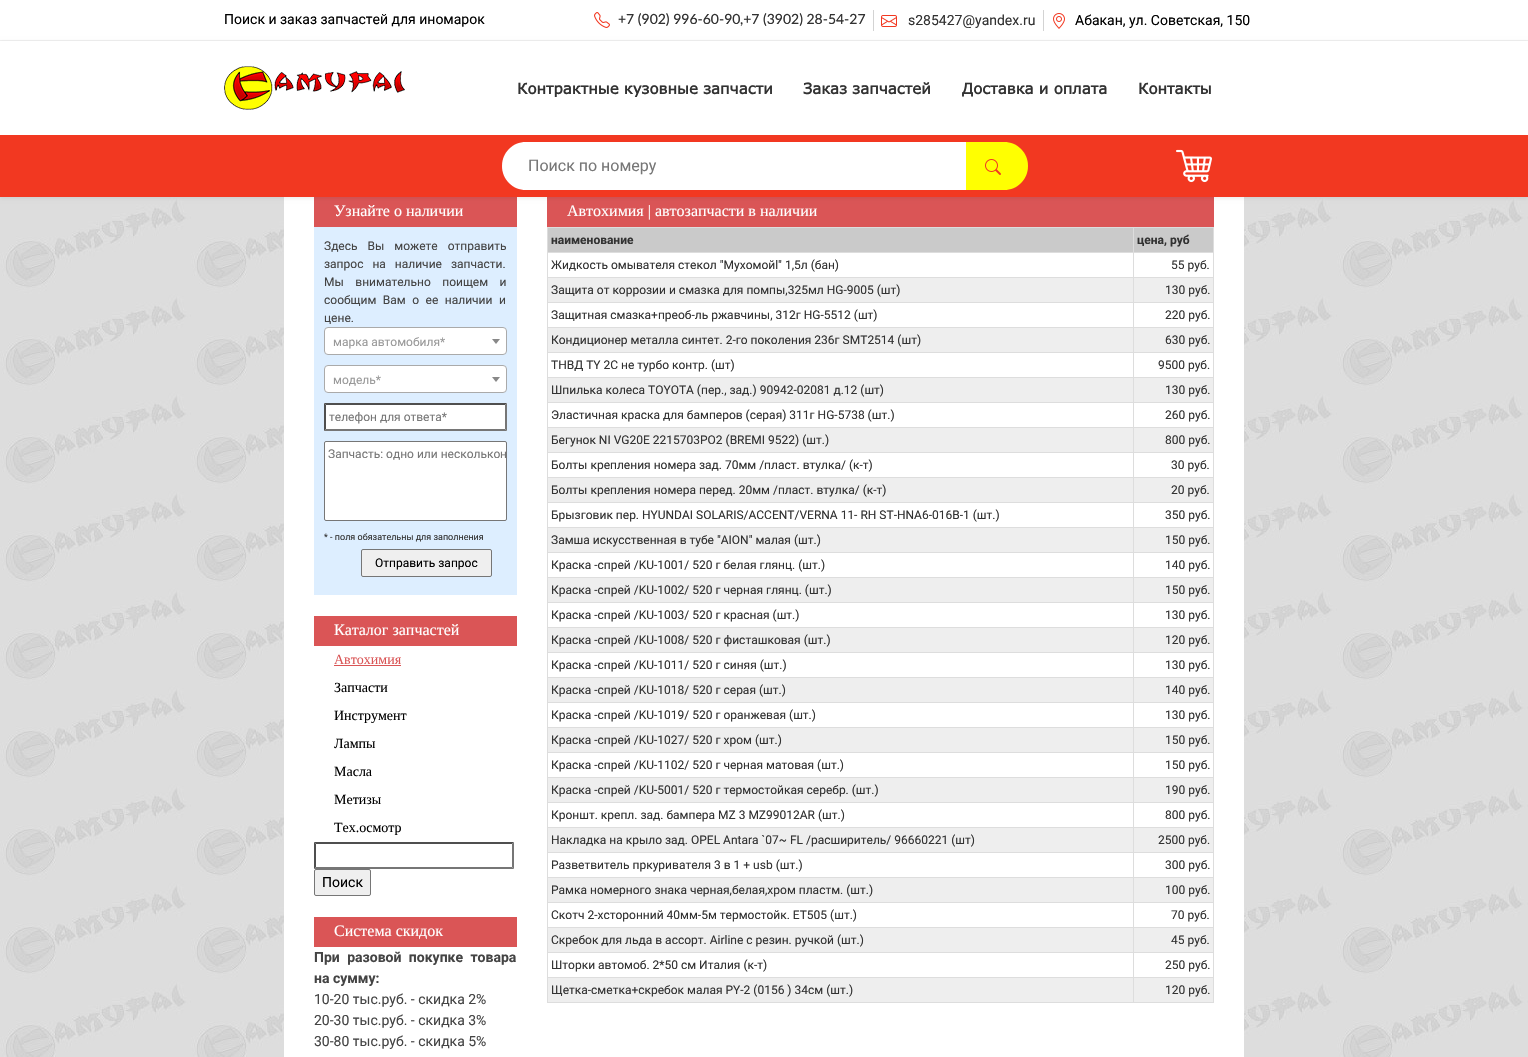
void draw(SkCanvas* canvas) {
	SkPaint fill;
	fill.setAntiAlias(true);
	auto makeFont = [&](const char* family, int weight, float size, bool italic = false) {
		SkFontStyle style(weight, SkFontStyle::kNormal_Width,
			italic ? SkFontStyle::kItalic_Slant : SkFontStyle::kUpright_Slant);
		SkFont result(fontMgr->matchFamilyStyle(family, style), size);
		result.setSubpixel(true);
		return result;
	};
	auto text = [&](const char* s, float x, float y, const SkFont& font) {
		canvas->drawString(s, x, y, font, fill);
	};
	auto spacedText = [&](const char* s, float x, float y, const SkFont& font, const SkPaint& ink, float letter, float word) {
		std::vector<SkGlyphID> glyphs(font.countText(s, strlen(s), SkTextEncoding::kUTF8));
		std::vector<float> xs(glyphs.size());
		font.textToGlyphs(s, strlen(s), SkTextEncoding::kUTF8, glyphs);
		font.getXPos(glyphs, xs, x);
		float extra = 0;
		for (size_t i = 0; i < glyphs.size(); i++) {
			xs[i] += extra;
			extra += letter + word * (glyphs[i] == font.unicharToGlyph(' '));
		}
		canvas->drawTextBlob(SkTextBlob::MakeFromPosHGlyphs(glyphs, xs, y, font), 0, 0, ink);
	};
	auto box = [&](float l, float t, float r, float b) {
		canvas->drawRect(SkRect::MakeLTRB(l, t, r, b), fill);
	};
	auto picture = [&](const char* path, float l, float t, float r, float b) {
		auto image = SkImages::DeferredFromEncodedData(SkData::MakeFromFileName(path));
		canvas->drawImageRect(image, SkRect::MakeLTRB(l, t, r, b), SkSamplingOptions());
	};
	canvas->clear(0xFFFFFFFF);
	picture("image0.png", 0, 197, 1528, 1057);
	fill.setColor(0xFFF0F0F0);
	box(0, 40, 1528, 41);
	picture("image1.png", 594, 12, 610, 28);
	fill.setColor(0xFFD3D3D3);
	box(873, 10, 874, 31);
	box(1043, 10, 1044, 31);
	picture("image2.png", 881, 15, 897, 27);
	picture("image3.png", 1053, 13, 1065, 29);
	fill.setColor(0xFFFFFFFF);
	box(284, 197, 1244, 1057);
	fill.setColor(0xFFDA5556);
	box(314, 197, 517, 227);
	box(547, 197, 1214, 227);
	fill.setColor(0x14000000);
	fill.setMaskFilter(SkMaskFilter::MakeBlur(kNormal_SkBlurStyle, 2));
	canvas->drawRect(SkRect::MakeLTRB(0, 42, 1528, 198), fill);
	fill.setMaskFilter(nullptr);
	fill.setColor(0xFFFFFFFF);
	box(0, 41, 1528, 135);
	picture("image4.png", 224, 66, 405, 110);
	fill.setColor(0xFFF23821);
	box(0, 135, 1528, 197);
	fill.setColor(0xFFFFFFFF);
	canvas->drawPath(SkPathBuilder().moveTo(526, 142).lineTo(974, 142).lineTo(974, 190).lineTo(526, 190).cubicTo(512.5f, 190, 502, 179.5f, 502, 166).cubicTo(502, 152.5f, 512.5f, 142, 526, 142).close().detach(), fill);
	fill.setColor(0xFFFFFF01);
	canvas->drawPath(SkPathBuilder().moveTo(966, 142).lineTo(1004, 142).cubicTo(1017.5f, 142, 1028, 152.5f, 1028, 166).cubicTo(1028, 179.5f, 1017.5f, 190, 1004, 190).lineTo(966, 190).close().detach(), fill);
	picture("image5.png", 985, 159, 1001, 175);
	picture("image6.png", 1176, 149, 1212, 183);
	fill.setColor(0xFFDDEEFF);
	box(314, 227, 517, 595);
	fill.setColor(0xFFFFFFFF);
	canvas->drawRoundRect(SkRect::MakeLTRB(324.5f, 327.5f, 506.5f, 354.5f), 3.5f, 3.5f, fill);
	fill.setStyle(SkPaint::kStroke_Style);
	fill.setStrokeWidth(1);
	fill.setColor(0xFFAAAAAA);
	canvas->drawRoundRect(SkRect::MakeLTRB(324.5f, 327.5f, 506.5f, 354.5f), 3.5f, 3.5f, fill);
	fill.setStyle(SkPaint::kFill_Style);
	fill.setColor(0xFF888888);
	canvas->drawPath(SkPathBuilder().moveTo(492, 339).lineTo(500, 339).lineTo(496, 344).close().detach(), fill);
	fill.setColor(0xFFFFFFFF);
	canvas->drawRoundRect(SkRect::MakeLTRB(324.5f, 365.5f, 506.5f, 392.5f), 3.5f, 3.5f, fill);
	fill.setStyle(SkPaint::kStroke_Style);
	fill.setColor(0xFFAAAAAA);
	canvas->drawRoundRect(SkRect::MakeLTRB(324.5f, 365.5f, 506.5f, 392.5f), 3.5f, 3.5f, fill);
	fill.setStyle(SkPaint::kFill_Style);
	fill.setColor(0xFF888888);
	canvas->drawPath(SkPathBuilder().moveTo(492, 377).lineTo(500, 377).lineTo(496, 382).close().detach(), fill);
	fill.setColor(0xFFFFFFFF);
	box(324, 403, 507, 431);
	fill.setColor(0xFF4F4F4F);
	canvas->drawPath(SkPathBuilder().moveTo(324, 403).lineTo(507, 403).lineTo(505, 405).lineTo(326, 405).close().detach(), fill);
	fill.setColor(0xFF767676);
	canvas->drawPath(SkPathBuilder().moveTo(507, 403).lineTo(507, 431).lineTo(505, 429).lineTo(505, 405).close().detach(), fill);
	canvas->drawPath(SkPathBuilder().moveTo(507, 431).lineTo(324, 431).lineTo(326, 429).lineTo(505, 429).close().detach(), fill);
	fill.setColor(0xFF4F4F4F);
	canvas->drawPath(SkPathBuilder().moveTo(324, 431).lineTo(324, 403).lineTo(326, 405).lineTo(326, 429).close().detach(), fill);
	fill.setColor(0xFFFFFFFF);
	canvas->drawRoundRect(SkRect::MakeLTRB(324.5f, 441.5f, 506.5f, 520.5f), 1.5f, 1.5f, fill);
	fill.setStyle(SkPaint::kStroke_Style);
	fill.setColor(0xFF767676);
	canvas->drawRoundRect(SkRect::MakeLTRB(324.5f, 441.5f, 506.5f, 520.5f), 1.5f, 1.5f, fill);
	fill.setStyle(SkPaint::kFill_Style);
	fill.setColor(0xFFEFEFEF);
	canvas->drawRoundRect(SkRect::MakeLTRB(361.5f, 549.5f, 491.5f, 576.5f), 1.5f, 1.5f, fill);
	fill.setStyle(SkPaint::kStroke_Style);
	fill.setColor(0xFF767676);
	canvas->drawRoundRect(SkRect::MakeLTRB(361.5f, 549.5f, 491.5f, 576.5f), 1.5f, 1.5f, fill);
	fill.setStyle(SkPaint::kFill_Style);
	fill.setColor(0xFFDA5556);
	box(314, 616, 517, 646);
	box(334, 665, 401, 666);
	fill.setColor(0xFF4F4F4F);
	canvas->drawPath(SkPathBuilder().moveTo(314, 842).lineTo(514, 842).lineTo(512, 844).lineTo(316, 844).close().detach(), fill);
	fill.setColor(0xFF767676);
	canvas->drawPath(SkPathBuilder().moveTo(514, 842).lineTo(514, 869).lineTo(512, 867).lineTo(512, 844).close().detach(), fill);
	canvas->drawPath(SkPathBuilder().moveTo(514, 869).lineTo(314, 869).lineTo(316, 867).lineTo(512, 867).close().detach(), fill);
	fill.setColor(0xFF4F4F4F);
	canvas->drawPath(SkPathBuilder().moveTo(314, 869).lineTo(314, 842).lineTo(316, 844).lineTo(316, 867).close().detach(), fill);
	fill.setColor(0xFFEFEFEF);
	canvas->drawRoundRect(SkRect::MakeLTRB(314.5f, 869.5f, 370.5f, 895.5f), 1.5f, 1.5f, fill);
	fill.setStyle(SkPaint::kStroke_Style);
	fill.setColor(0xFF767676);
	canvas->drawRoundRect(SkRect::MakeLTRB(314.5f, 869.5f, 370.5f, 895.5f), 1.5f, 1.5f, fill);
	fill.setStyle(SkPaint::kFill_Style);
	fill.setColor(0xFFDA5556);
	box(314, 917, 517, 947);
	fill.setColor(0xFFCACACA);
	box(548, 228, 1213, 252);
	fill.setColor(0xFFDDDDDD);
	box(1133, 227, 1214, 228);
	box(1133, 252, 1214, 253);
	box(1133, 277, 1214, 278);
	fill.setColor(0xFFEEEEEE);
	box(548, 278, 1213, 302);
	fill.setColor(0xFFDDDDDD);
	box(1133, 302, 1214, 303);
	box(1133, 327, 1214, 328);
	fill.setColor(0xFFEEEEEE);
	box(548, 328, 1213, 352);
	fill.setColor(0xFFDDDDDD);
	box(1133, 352, 1214, 353);
	box(1133, 377, 1214, 378);
	fill.setColor(0xFFEEEEEE);
	box(548, 378, 1213, 402);
	fill.setColor(0xFFDDDDDD);
	box(1133, 402, 1214, 403);
	box(1133, 427, 1214, 428);
	fill.setColor(0xFFEEEEEE);
	box(548, 428, 1213, 452);
	fill.setColor(0xFFDDDDDD);
	box(1133, 452, 1214, 453);
	box(1133, 477, 1214, 478);
	fill.setColor(0xFFEEEEEE);
	box(548, 478, 1213, 502);
	fill.setColor(0xFFDDDDDD);
	box(1133, 502, 1214, 503);
	box(1133, 527, 1214, 528);
	fill.setColor(0xFFEEEEEE);
	box(548, 528, 1213, 552);
	fill.setColor(0xFFDDDDDD);
	box(1133, 552, 1214, 553);
	box(1133, 577, 1214, 578);
	fill.setColor(0xFFEEEEEE);
	box(548, 578, 1213, 602);
	fill.setColor(0xFFDDDDDD);
	box(1133, 602, 1214, 603);
	box(1133, 627, 1214, 628);
	fill.setColor(0xFFEEEEEE);
	box(548, 628, 1213, 652);
	fill.setColor(0xFFDDDDDD);
	box(1133, 652, 1214, 653);
	box(1133, 677, 1214, 678);
	fill.setColor(0xFFEEEEEE);
	box(548, 678, 1213, 702);
	fill.setColor(0xFFDDDDDD);
	box(1133, 702, 1214, 703);
	box(1133, 727, 1214, 728);
	fill.setColor(0xFFEEEEEE);
	box(548, 728, 1213, 752);
	fill.setColor(0xFFDDDDDD);
	box(1133, 752, 1214, 753);
	box(1133, 777, 1214, 778);
	fill.setColor(0xFFEEEEEE);
	box(548, 778, 1213, 802);
	fill.setColor(0xFFDDDDDD);
	box(1133, 802, 1214, 803);
	box(1133, 827, 1214, 828);
	fill.setColor(0xFFEEEEEE);
	box(548, 828, 1213, 852);
	fill.setColor(0xFFDDDDDD);
	box(1133, 852, 1214, 853);
	box(1133, 877, 1214, 878);
	fill.setColor(0xFFEEEEEE);
	box(548, 878, 1213, 902);
	fill.setColor(0xFFDDDDDD);
	box(1133, 902, 1214, 903);
	box(1133, 927, 1214, 928);
	fill.setColor(0xFFEEEEEE);
	box(548, 928, 1213, 952);
	fill.setColor(0xFFDDDDDD);
	box(1133, 952, 1214, 953);
	box(1133, 977, 1214, 978);
	fill.setColor(0xFFEEEEEE);
	box(548, 978, 1213, 1002);
	fill.setColor(0xFFDDDDDD);
	box(1213, 977, 1214, 1003);
	box(1133, 1002, 1214, 1003);
	box(1133, 977, 1134, 1003);
	box(547, 977, 1134, 978);
	box(1133, 952, 1134, 978);
	box(547, 952, 1134, 953);
	box(1133, 927, 1134, 953);
	box(547, 927, 1134, 928);
	box(1133, 902, 1134, 928);
	box(547, 902, 1134, 903);
	box(1133, 877, 1134, 903);
	box(547, 877, 1134, 878);
	box(1133, 852, 1134, 878);
	box(547, 852, 1134, 853);
	box(1133, 827, 1134, 853);
	box(547, 827, 1134, 828);
	box(1133, 802, 1134, 828);
	box(547, 802, 1134, 803);
	box(1133, 777, 1134, 803);
	box(547, 777, 1134, 778);
	box(1133, 752, 1134, 778);
	box(547, 752, 1134, 753);
	box(1133, 727, 1134, 753);
	box(547, 727, 1134, 728);
	box(1133, 702, 1134, 728);
	box(547, 702, 1134, 703);
	box(1133, 677, 1134, 703);
	box(547, 677, 1134, 678);
	box(1133, 652, 1134, 678);
	box(547, 652, 1134, 653);
	box(1133, 627, 1134, 653);
	box(547, 627, 1134, 628);
	box(1133, 602, 1134, 628);
	box(547, 602, 1134, 603);
	box(1133, 577, 1134, 603);
	box(547, 577, 1134, 578);
	box(1133, 552, 1134, 578);
	box(547, 552, 1134, 553);
	box(1133, 527, 1134, 553);
	box(547, 527, 1134, 528);
	box(1133, 502, 1134, 528);
	box(547, 502, 1134, 503);
	box(1133, 477, 1134, 503);
	box(547, 477, 1134, 478);
	box(1133, 452, 1134, 478);
	box(547, 452, 1134, 453);
	box(1133, 427, 1134, 453);
	box(547, 427, 1134, 428);
	box(1133, 402, 1134, 428);
	box(547, 402, 1134, 403);
	box(1133, 377, 1134, 403);
	box(547, 377, 1134, 378);
	box(1133, 352, 1134, 378);
	box(547, 352, 1134, 353);
	box(1133, 327, 1134, 353);
	box(547, 327, 1134, 328);
	box(1133, 302, 1134, 328);
	box(547, 302, 1134, 303);
	box(1133, 277, 1134, 303);
	box(547, 277, 1134, 278);
	box(1133, 252, 1134, 278);
	box(547, 252, 1134, 253);
	box(1133, 227, 1134, 253);
	box(547, 227, 1134, 228);
	box(547, 1002, 1134, 1003);
	box(547, 977, 548, 1003);
	box(547, 952, 548, 978);
	box(547, 927, 548, 953);
	box(547, 902, 548, 928);
	box(547, 877, 548, 903);
	box(547, 852, 548, 878);
	box(547, 827, 548, 853);
	box(547, 802, 548, 828);
	box(547, 777, 548, 803);
	box(547, 752, 548, 778);
	box(547, 727, 548, 753);
	box(547, 702, 548, 728);
	box(547, 677, 548, 703);
	box(547, 652, 548, 678);
	box(547, 627, 548, 653);
	box(547, 602, 548, 628);
	box(547, 577, 548, 603);
	box(547, 552, 548, 578);
	box(547, 527, 548, 553);
	box(547, 502, 548, 528);
	box(547, 477, 548, 503);
	box(547, 452, 548, 478);
	box(547, 427, 548, 453);
	box(547, 402, 548, 428);
	box(547, 377, 548, 403);
	box(547, 352, 548, 378);
	box(547, 327, 548, 353);
	box(547, 302, 548, 328);
	box(547, 277, 548, 303);
	box(547, 252, 548, 278);
	box(547, 227, 548, 253);
	box(1213, 952, 1214, 978);
	box(1213, 927, 1214, 953);
	box(1213, 902, 1214, 928);
	box(1213, 877, 1214, 903);
	box(1213, 852, 1214, 878);
	box(1213, 827, 1214, 853);
	box(1213, 802, 1214, 828);
	box(1213, 777, 1214, 803);
	box(1213, 752, 1214, 778);
	box(1213, 727, 1214, 753);
	box(1213, 702, 1214, 728);
	box(1213, 677, 1214, 703);
	box(1213, 652, 1214, 678);
	box(1213, 627, 1214, 653);
	box(1213, 602, 1214, 628);
	box(1213, 577, 1214, 603);
	box(1213, 552, 1214, 578);
	box(1213, 527, 1214, 553);
	box(1213, 502, 1214, 528);
	box(1213, 477, 1214, 503);
	box(1213, 452, 1214, 478);
	box(1213, 427, 1214, 453);
	box(1213, 402, 1214, 428);
	box(1213, 377, 1214, 403);
	box(1213, 352, 1214, 378);
	box(1213, 327, 1214, 353);
	box(1213, 302, 1214, 328);
	box(1213, 277, 1214, 303);
	box(1213, 252, 1214, 278);
	box(1213, 227, 1214, 253);
	auto font1 = makeFont("Roboto", 400, 14);
	fill.setColor(0xFF000000);
	text("Поиск и заказ запчастей для иномарок", 224, 24, font1);
	auto font2 = makeFont("Lato", 500, 14);
	fill.setColor(0xFF323232);
	text("+7 (902) 996-60-90", 618, 24, font2);
	text(",+7 (3902) 28-54-27", 740, 24, font2);
	text("s285427@yandex.ru", 908, 25, font1);
	fill.setColor(0xFF000000);
	text("Абакан, ул. Советская, 150", 1075, 25, font1);
	auto font3 = makeFont("Verdana", 700, 15);
	fill.setColor(0xFF323232);
	text("Контрактные кузовные запчасти", 517, 94, font3);
	text("Заказ запчастей", 803, 94, font3);
	text("Доставка и оплата", 962, 94, font3);
	text("Контакты", 1138, 94, font3);
	auto font4 = makeFont("Roboto", 400, 16);
	fill.setColor(0xFF777777);
	text("Поиск по номеру", 528, 171, font4);
	auto font5 = makeFont("Liberation Serif", 400, 16);
	fill.setColor(0xFFFFFFFF);
	text("Узнайте о наличии", 334, 216, font5);
	auto font6 = makeFont("Roboto", 400, 12);
	fill.setColor(0xFF444444);
	spacedText("Здесь Вы можете отправить", 324, 250, font6, fill, 0, 7);
	spacedText("запрос на наличие запчасти.", 324, 268, font6, fill, 0, 6);
	spacedText("Мы внимательно поищем и", 324, 286, font6, fill, 0, 8.5f);
	spacedText("сообщим Вам о ее наличии и", 324, 304, font6, fill, 0, 3.5f);
	text("цене.", 324, 322, font6);
	fill.setColor(0xFF999999);
	text("марка автомобиля*", 333, 346, font6);
	text("модель*", 333, 384, font6);
	fill.setColor(0xFF777777);
	text("телефон для ответа*", 329, 421, font6);
	text("Запчасть: одно или несколько", 328, 458, font6);
	canvas->save();
	canvas->clipRect(SkRect::MakeLTRB(325, 442, 506, 520));
	text("н", 500, 458, font6);
	canvas->restore();
	auto font7 = makeFont("Roboto", 400, 9);
	fill.setColor(0xFF323232);
	text("* - поля обязательны для заполнения", 324, 540, font7);
	fill.setColor(0xFF000000);
	text("Отправить запрос", 375, 567, font6);
	fill.setColor(0xFFFFFFFF);
	text("Каталог запчастей", 334, 635, font5);
	auto font8 = makeFont("Liberation Serif", 400, 14);
	fill.setColor(0xFFDA5556);
	text("Автохимия", 334, 664, font8);
	fill.setColor(0xFF000000);
	text("Запчасти", 334, 692, font8);
	text("Инструмент", 334, 720, font8);
	text("Лампы", 334, 748, font8);
	text("Масла", 334, 776, font8);
	text("Метизы", 334, 804, font8);
	text("Тех.осмотр", 334, 832, font8);
	text("Поиск", 322, 887, font1);
	fill.setColor(0xFFFFFFFF);
	text("Система скидок", 334, 936, font5);
	auto font9 = makeFont("Roboto", 700, 14);
	fill.setColor(0xFF444444);
	spacedText("При разовой покупке товара", 314, 962, font9, fill, 0, 4);
	text("на сумму:", 314, 983, font9);
	text("10-20 тыс.руб. - скидка 2%", 314, 1004, font1);
	text("20-30 тыс.руб. - скидка 3%", 314, 1025, font1);
	text("30-80 тыс.руб. - скидка 5%", 314, 1046, font1);
	fill.setColor(0xFFFFFFFF);
	text("Автохимия | автозапчасти в наличии", 567, 216, font5);
	auto font10 = makeFont("Roboto", 700, 12);
	fill.setColor(0xFF323232);
	text("наименование", 551, 244, font10);
	text("цена, руб", 1137, 244, font10);
	text("Жидкость омывателя стекол \"Мухомойl\" 1,5л (бан)", 551, 269, font6);
	text("55 руб.", 1171, 269, font6);
	text("Защита от коррозии и смазка для помпы,325мл HG-9005 (шт)", 551, 294, font6);
	text("130 руб.", 1165, 294, font6);
	text("Защитная смазка+преоб-ль ржавчины, 312г HG-5512 (шт)", 551, 319, font6);
	text("220 руб.", 1165, 319, font6);
	text("Кондиционер металла синтет. 2-го поколения 236г SMT2514 (шт)", 551, 344, font6);
	text("630 руб.", 1165, 344, font6);
	text("ТНВД TY 2C не турбо контр. (шт)", 551, 369, font6);
	text("9500 руб.", 1158, 369, font6);
	text("Шпилька колеса TOYOTA (пер., зад.) 90942-02081 д.12 (шт)", 551, 394, font6);
	text("130 руб.", 1165, 394, font6);
	text("Эластичная краска для бамперов (серая) 311г HG-5738 (шт.)", 551, 419, font6);
	text("260 руб.", 1165, 419, font6);
	text("Бегунок NI VG20E 2215703PO2 (BREMI 9522) (шт.)", 551, 444, font6);
	text("800 руб.", 1165, 444, font6);
	text("Болты крепления номера зад. 70мм /пласт. втулка/ (к-т)", 551, 469, font6);
	text("30 руб.", 1171, 469, font6);
	text("Болты крепления номера перед. 20мм /пласт. втулка/ (к-т)", 551, 494, font6);
	text("20 руб.", 1171, 494, font6);
	text("Брызговик пер. HYUNDAI SOLARIS/ACCENT/VERNA 11- RH ST-HNA6-016B-1 (шт.)", 551, 519, font6);
	text("350 руб.", 1165, 519, font6);
	text("Замша искусственная в тубе \"AION\" малая (шт.)", 551, 544, font6);
	text("150 руб.", 1165, 544, font6);
	text("Краска -спрей /KU-1001/ 520 г белая глянц. (шт.)", 551, 569, font6);
	text("140 руб.", 1165, 569, font6);
	text("Краска -спрей /KU-1002/ 520 г черная глянц. (шт.)", 551, 594, font6);
	text("150 руб.", 1165, 594, font6);
	text("Краска -спрей /KU-1003/ 520 г красная (шт.)", 551, 619, font6);
	text("130 руб.", 1165, 619, font6);
	text("Краска -спрей /KU-1008/ 520 г фисташковая (шт.)", 551, 644, font6);
	text("120 руб.", 1165, 644, font6);
	text("Краска -спрей /KU-1011/ 520 г синяя (шт.)", 551, 669, font6);
	text("130 руб.", 1165, 669, font6);
	text("Краска -спрей /KU-1018/ 520 г серая (шт.)", 551, 694, font6);
	text("140 руб.", 1165, 694, font6);
	text("Краска -спрей /KU-1019/ 520 г оранжевая (шт.)", 551, 719, font6);
	text("130 руб.", 1165, 719, font6);
	text("Краска -спрей /KU-1027/ 520 г хром (шт.)", 551, 744, font6);
	text("150 руб.", 1165, 744, font6);
	text("Краска -спрей /KU-1102/ 520 г черная матовая (шт.)", 551, 769, font6);
	text("150 руб.", 1165, 769, font6);
	text("Краска -спрей /KU-5001/ 520 г термостойкая серебр. (шт.)", 551, 794, font6);
	text("190 руб.", 1165, 794, font6);
	text("Кроншт. крепл. зад. бампера MZ 3 MZ99012AR (шт.)", 551, 819, font6);
	text("800 руб.", 1165, 819, font6);
	text("Накладка на крыло зад. OPEL Antara `07~ FL /расширитель/ 96660221 (шт)", 551, 844, font6);
	text("2500 руб.", 1158, 844, font6);
	text("Разветвитель пркуривателя 3 в 1 + usb (шт.)", 551, 869, font6);
	text("300 руб.", 1165, 869, font6);
	text("Рамка номерного знака черная,белая,хром пластм. (шт.)", 551, 894, font6);
	text("100 руб.", 1165, 894, font6);
	text("Скотч 2-хсторонний 40мм-5м термостойк. ЕТ505 (шт.)", 551, 919, font6);
	text("70 руб.", 1171, 919, font6);
	text("Скребок для льда в ассорт. Airline c резин. ручкой (шт.)", 551, 944, font6);
	text("45 руб.", 1171, 944, font6);
	text("Шторки автомоб. 2*50 см Италия (к-т)", 551, 969, font6);
	text("250 руб.", 1165, 969, font6);
	text("Щетка-сметка+скребок малая PY-2 (0156 ) 34см (шт.)", 551, 994, font6);
	text("120 руб.", 1165, 994, font6);
}
